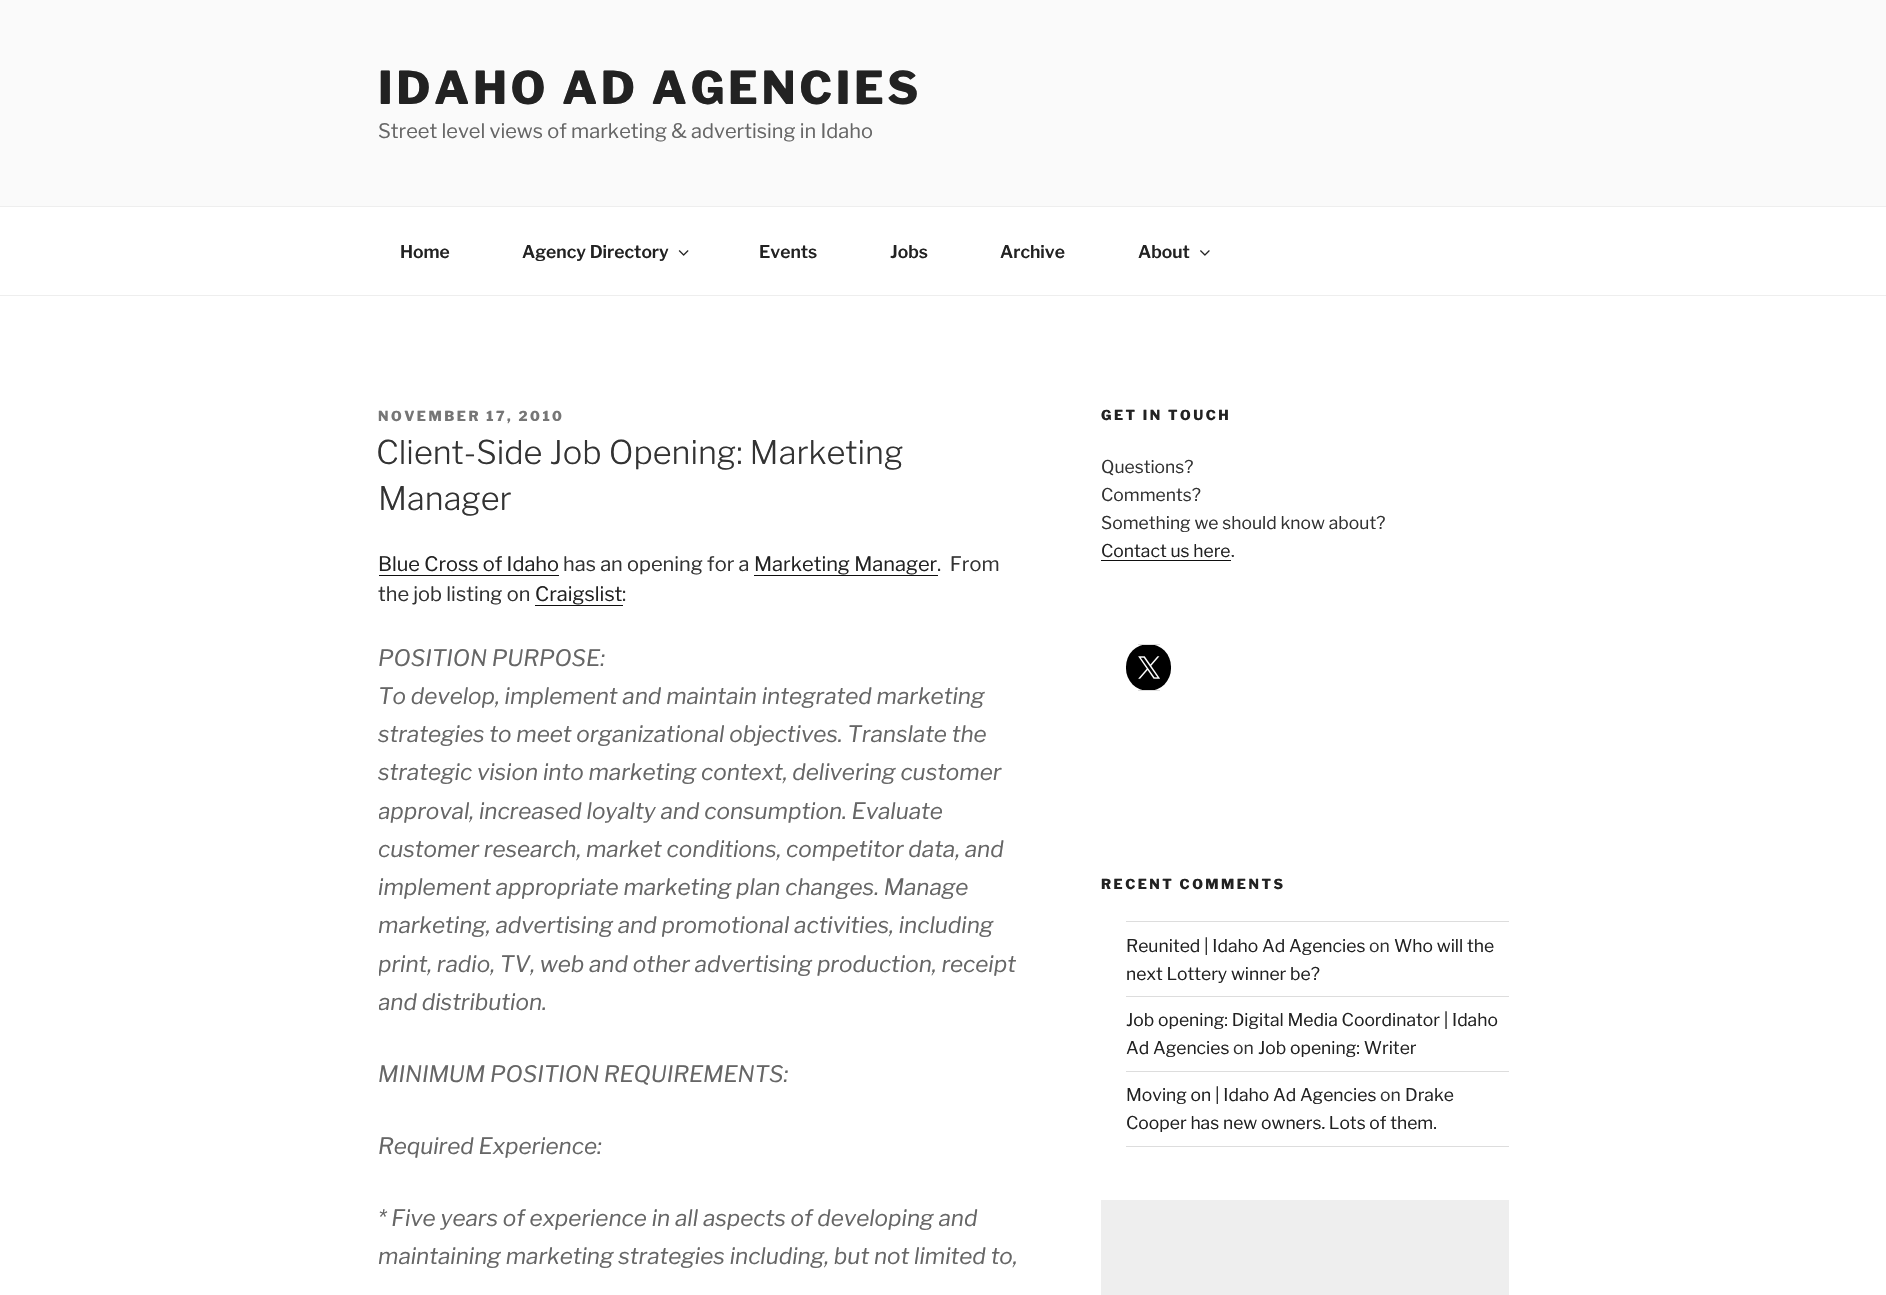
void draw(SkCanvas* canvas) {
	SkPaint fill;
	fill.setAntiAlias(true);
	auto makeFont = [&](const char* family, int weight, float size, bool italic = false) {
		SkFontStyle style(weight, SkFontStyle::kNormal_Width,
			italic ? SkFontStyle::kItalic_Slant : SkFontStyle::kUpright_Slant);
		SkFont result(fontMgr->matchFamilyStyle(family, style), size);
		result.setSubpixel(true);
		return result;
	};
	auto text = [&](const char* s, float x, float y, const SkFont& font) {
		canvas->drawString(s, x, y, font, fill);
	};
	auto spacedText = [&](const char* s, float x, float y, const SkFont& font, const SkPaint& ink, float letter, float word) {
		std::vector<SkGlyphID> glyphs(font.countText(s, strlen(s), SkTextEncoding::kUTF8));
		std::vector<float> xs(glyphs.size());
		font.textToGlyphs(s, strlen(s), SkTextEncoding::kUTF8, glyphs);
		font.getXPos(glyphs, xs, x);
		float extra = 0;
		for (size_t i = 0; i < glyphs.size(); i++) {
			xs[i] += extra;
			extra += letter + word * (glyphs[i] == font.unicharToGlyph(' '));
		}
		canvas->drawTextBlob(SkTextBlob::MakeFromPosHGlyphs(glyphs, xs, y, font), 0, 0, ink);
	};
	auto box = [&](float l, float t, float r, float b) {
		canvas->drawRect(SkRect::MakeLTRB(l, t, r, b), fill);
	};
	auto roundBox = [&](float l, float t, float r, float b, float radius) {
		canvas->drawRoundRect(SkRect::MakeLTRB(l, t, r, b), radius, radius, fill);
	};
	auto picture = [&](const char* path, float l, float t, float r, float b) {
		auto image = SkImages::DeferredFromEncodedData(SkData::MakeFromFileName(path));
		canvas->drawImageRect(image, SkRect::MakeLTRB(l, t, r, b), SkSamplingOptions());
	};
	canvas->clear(0xFFFFFFFF);
	fill.setColor(0xFFFAFAFA);
	box(0, 0, 1886, 206);
	fill.setColor(0xFFEEEEEE);
	box(0, 206, 1886, 207);
	box(0, 295, 1886, 296);
	picture("image0.png", 678, 250, 689, 256);
	picture("image1.png", 1200, 250, 1210, 256);
	fill.setColor(0xFF0F0F0F);
	box(379, 575, 559, 576);
	box(754, 575, 938, 576);
	box(535, 605, 623, 606);
	box(1101, 560, 1231, 561);
	fill.setColor(0xFF000000);
	roundBox(1126, 644, 1171, 691, 22.5f);
	fill.setColor(0xFFDDDDDD);
	box(1138, 644, 1160, 645);
	box(1138, 690, 1160, 691);
	picture("image2.png", 1138, 656, 1160, 679);
	box(1126, 921, 1509, 922);
	box(1126, 996, 1509, 997);
	box(1126, 1071, 1509, 1072);
	box(1126, 1146, 1509, 1147);
	fill.setColor(0xFFEEEEEE);
	box(1101, 1200, 1509, 1295);
	auto font1 = makeFont("Libre Franklin", 100, 45);
	fill.setColor(0xFF222222);
	spacedText("IDAHO AD AGENCIES", 378, 104, font1, fill, 3.6f, 0);
	auto font2 = makeFont("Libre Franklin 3", 100, 20);
	fill.setColor(0xFF666666);
	text("Street level views of marketing & advertising in Idaho", 378, 138, font2);
	auto font3 = makeFont("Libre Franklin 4", 100, 17.5f);
	fill.setColor(0xFF222222);
	text("Home", 400, 258, font3);
	text("Agency Directory", 522, 258, font3);
	text("Events", 759, 258, font3);
	text("Jobs", 890, 258, font3);
	text("Archive", 1000, 258, font3);
	text("About", 1138, 258, font3);
	auto font4 = makeFont("Libre Franklin", 100, 13.75f);
	fill.setColor(0xFF767676);
	spacedText("NOVEMBER 17, 2010", 378, 421, font4, fill, 2.5f, 0);
	auto font5 = makeFont("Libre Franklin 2", 100, 32.5f);
	fill.setColor(0xFF333333);
	text("Client-Side Job Opening: Marketing", 376, 464, font5);
	text("Manager", 378, 510, font5);
	fill.setColor(0xFF222222);
	text("Blue Cross of Idaho", 378, 571, font2);
	fill.setColor(0xFF333333);
	text("has an opening for a", 563, 571, font2);
	fill.setColor(0xFF222222);
	text("Marketing Manager", 754, 571, font2);
	fill.setColor(0xFF333333);
	text(".  From", 937, 571, font2);
	text("the job listing on", 378, 601, font2);
	fill.setColor(0xFF222222);
	text("Craigslist", 535, 601, font2);
	fill.setColor(0xFF333333);
	text(":", 622, 601, font2);
	auto font6 = makeFont("Libre Franklin", 100, 22.5f, true);
	fill.setColor(0xFF666666);
	text("POSITION PURPOSE:", 378, 666, font6);
	text("To develop, implement and maintain integrated marketing", 378, 704, font6);
	text("strategies to meet organizational objectives. Translate the", 378, 742, font6);
	text("strategic vision into marketing context, delivering customer", 378, 780, font6);
	canvas->save();
	canvas->clipRect(SkRect::MakeLTRB(379, 640, 1034, 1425));
	text("approval, increased loyalty and consumption. Evaluate", 378, 819, font6);
	canvas->restore();
	text("customer research, market conditions, competitor data, and", 378, 857, font6);
	text("implement appropriate marketing plan changes. Manage", 378, 895, font6);
	text("marketing, advertising and promotional activities, including", 378, 933, font6);
	canvas->save();
	canvas->clipRect(SkRect::MakeLTRB(379, 640, 1034, 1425));
	text("print, radio, TV, web and other advertising production, receipt", 378, 972, font6);
	text("and distribution.", 378, 1010, font6);
	canvas->restore();
	text("MINIMUM POSITION REQUIREMENTS:", 378, 1082, font6);
	text("Required Experience:", 378, 1154, font6);
	text("* Five years of experience in all aspects of developing and", 378, 1226, font6);
	text("maintaining marketing strategies including, but not limited to,", 378, 1264, font6);
	fill.setColor(0xFF222222);
	spacedText("GET IN TOUCH", 1101, 420, font4, fill, 2.5f, 0);
	auto font7 = makeFont("Libre Franklin 3", 100, 17.5f);
	fill.setColor(0xFF333333);
	text("Questions?", 1101, 473, font7);
	text("Comments?", 1101, 501, font7);
	text("Something we should know about?", 1101, 529, font7);
	fill.setColor(0xFF222222);
	text("Contact us here", 1101, 557, font7);
	fill.setColor(0xFF333333);
	text(".", 1231, 557, font7);
	fill.setColor(0xFF222222);
	spacedText("RECENT COMMENTS", 1101, 889, font4, fill, 2.5f, 0);
	text("Reunited | Idaho Ad Agencies", 1126, 952, font7);
	fill.setColor(0xFF333333);
	text("on", 1369, 952, font7);
	fill.setColor(0xFF222222);
	text("Who will the", 1394, 952, font7);
	text("next Lottery winner be?", 1126, 980, font7);
	text("Job opening: Digital Media Coordinator | Idaho", 1126, 1026, font7);
	text("Ad Agencies", 1126, 1054, font7);
	fill.setColor(0xFF333333);
	text("on", 1233, 1054, font7);
	fill.setColor(0xFF222222);
	text("Job opening: Writer", 1258, 1054, font7);
	text("Moving on | Idaho Ad Agencies", 1126, 1101, font7);
	fill.setColor(0xFF333333);
	text("on", 1380, 1101, font7);
	fill.setColor(0xFF222222);
	text("Drake", 1405, 1101, font7);
	text("Cooper has new owners. Lots of them.", 1126, 1129, font7);
}
